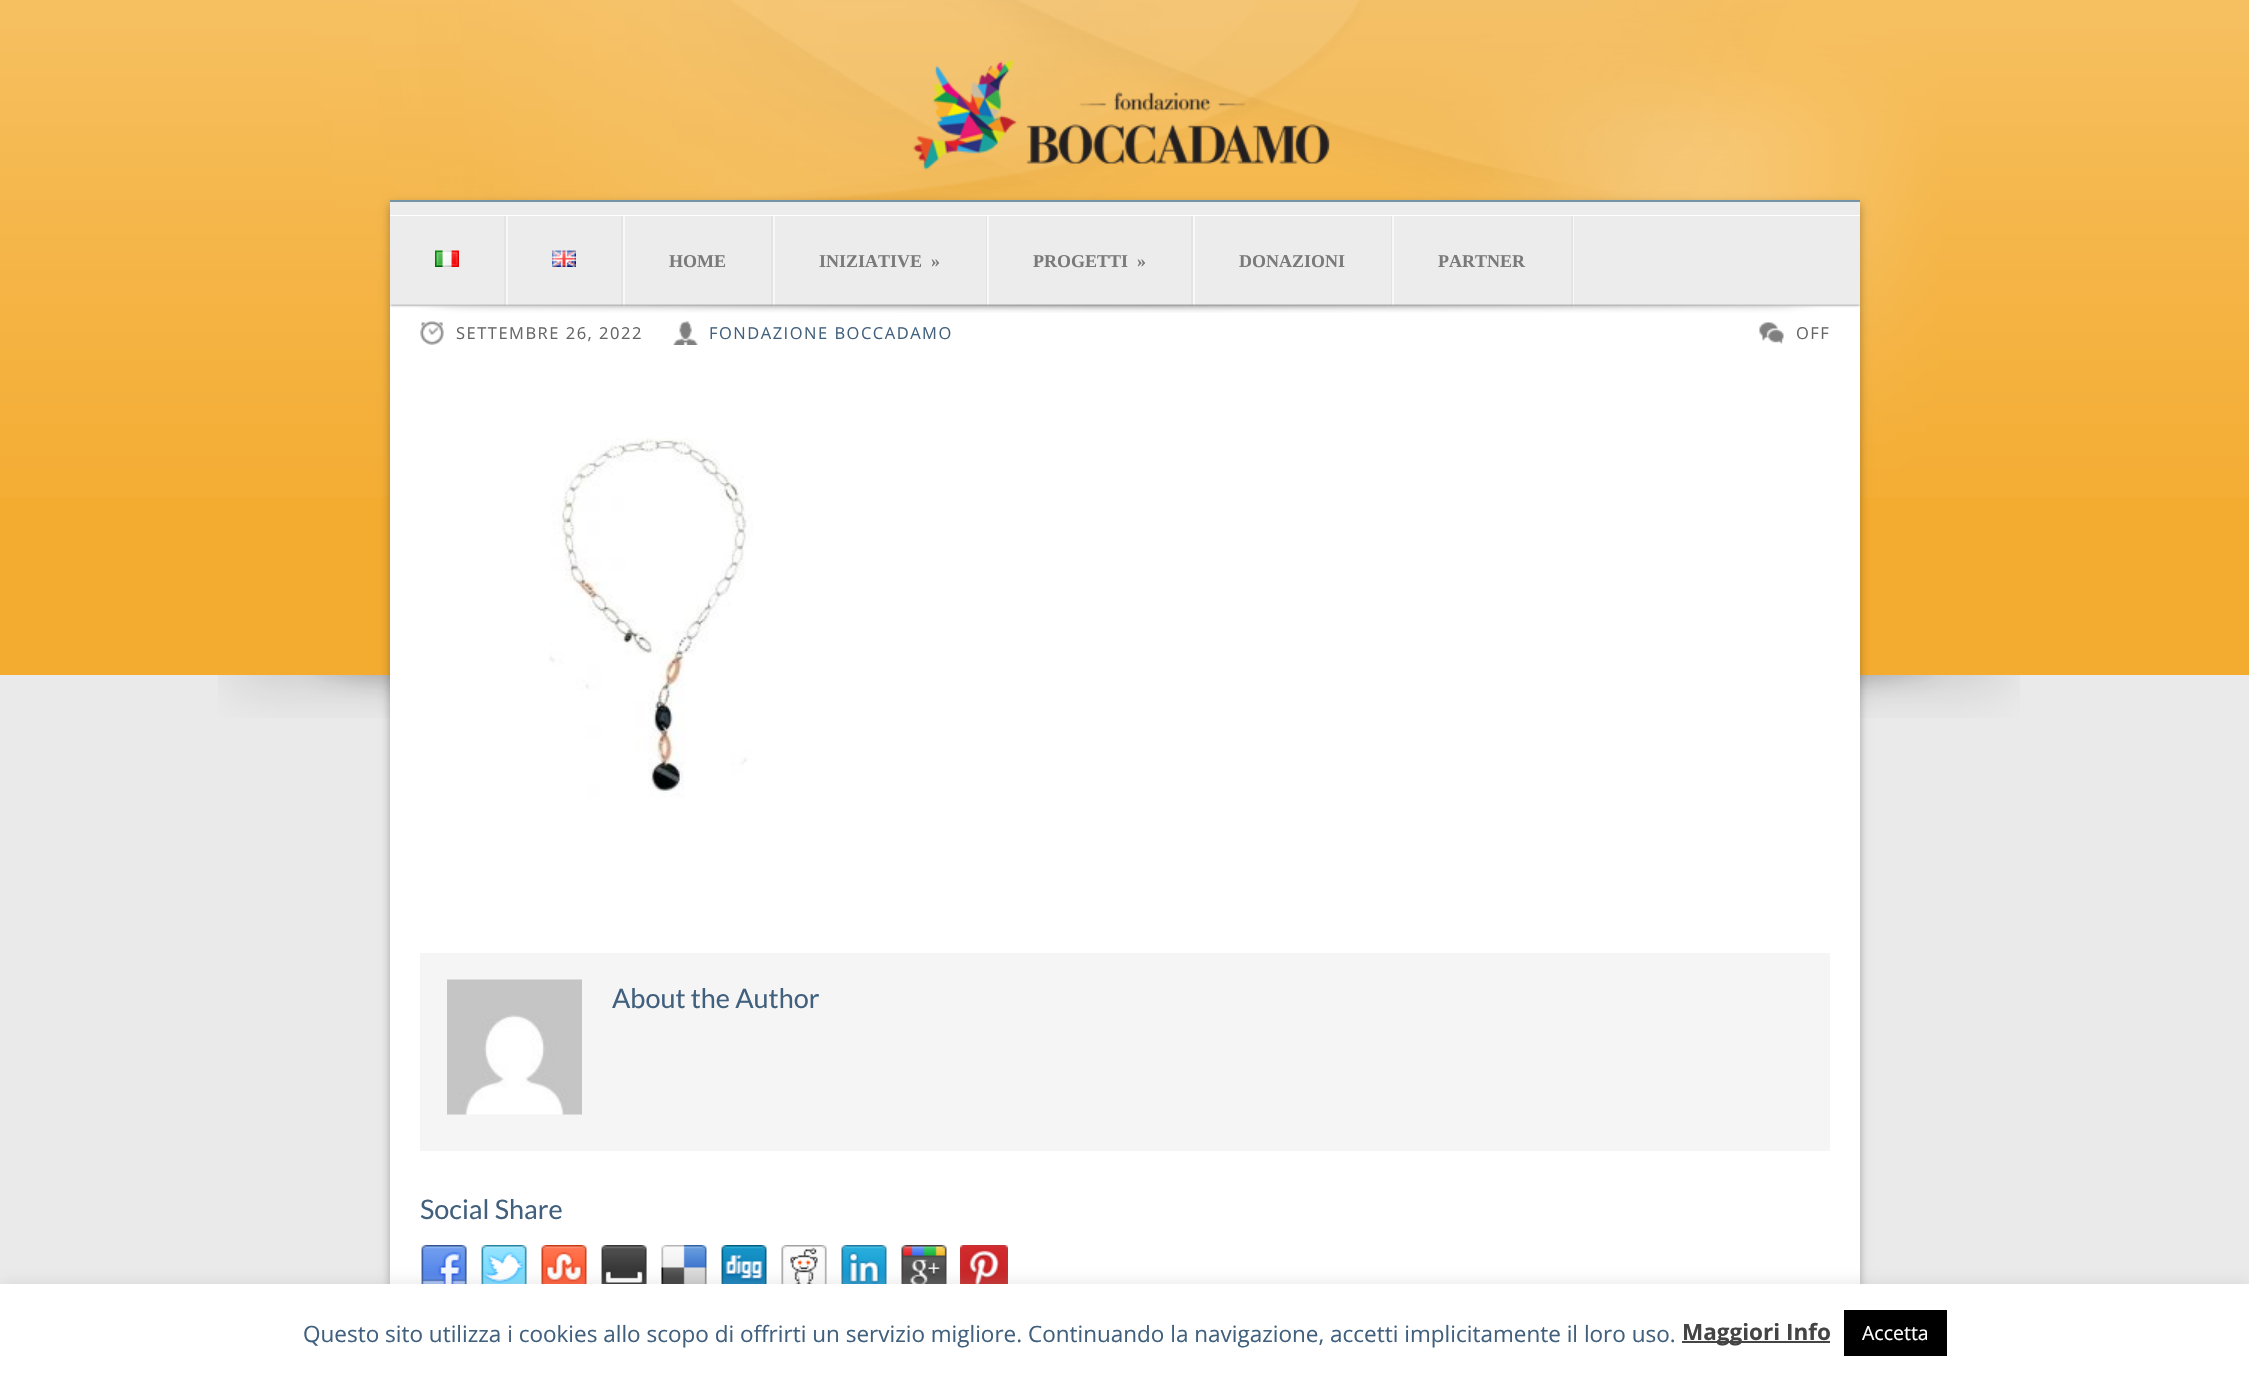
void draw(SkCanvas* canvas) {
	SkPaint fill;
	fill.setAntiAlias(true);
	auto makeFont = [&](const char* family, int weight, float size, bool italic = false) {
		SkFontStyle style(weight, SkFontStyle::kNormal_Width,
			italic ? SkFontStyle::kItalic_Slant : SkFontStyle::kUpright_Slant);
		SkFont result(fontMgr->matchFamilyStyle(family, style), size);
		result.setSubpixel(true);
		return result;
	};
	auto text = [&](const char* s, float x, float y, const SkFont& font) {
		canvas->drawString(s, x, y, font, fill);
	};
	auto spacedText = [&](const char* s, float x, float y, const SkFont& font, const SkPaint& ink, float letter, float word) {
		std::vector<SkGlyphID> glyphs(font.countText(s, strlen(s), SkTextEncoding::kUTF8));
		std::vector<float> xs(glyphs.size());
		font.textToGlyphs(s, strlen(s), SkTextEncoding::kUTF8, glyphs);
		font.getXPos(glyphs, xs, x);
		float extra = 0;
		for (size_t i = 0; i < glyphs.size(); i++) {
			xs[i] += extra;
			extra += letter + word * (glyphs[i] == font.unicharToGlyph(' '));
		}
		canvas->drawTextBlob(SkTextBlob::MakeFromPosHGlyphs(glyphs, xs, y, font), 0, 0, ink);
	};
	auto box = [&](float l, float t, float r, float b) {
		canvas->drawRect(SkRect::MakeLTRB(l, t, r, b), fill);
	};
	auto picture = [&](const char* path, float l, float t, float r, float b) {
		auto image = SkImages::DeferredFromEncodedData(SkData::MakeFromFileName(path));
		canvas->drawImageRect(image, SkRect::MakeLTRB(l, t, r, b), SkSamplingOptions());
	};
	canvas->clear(0xFFEAEAEA);
	fill.setColor(0xFFF4AC30);
	box(0, 0, 2249, 675);
	picture("image0.png", 0, 0, 2249, 497);
	picture("image1.png", 913, 60, 1330, 170);
	picture("image2.png", 218, 675, 2020, 718);
	fill.setColor(0x4D000000);
	fill.setMaskFilter(SkMaskFilter::MakeBlur(kNormal_SkBlurStyle, 4.5f));
	canvas->drawRect(SkRect::MakeLTRB(390, 204, 1860, 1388), fill);
	fill.setMaskFilter(nullptr);
	fill.setColor(0xFFFFFFFF);
	box(390, 306, 1860, 1284);
	fill.setColor(0xFFECECEC);
	box(390, 202, 1860, 215);
	fill.setColor(0xFF7594A8);
	box(390, 200, 1860, 202);
	fill.setColor(0xFFFFFFFF);
	box(390, 215, 1860, 216);
	fill.setColor(0xFFECECEC);
	box(390, 216, 1860, 306);
	fill.setColor(0xFFF8F8F8);
	box(1573, 216, 1574, 306);
	fill.setColor(0xFFE4E4E4);
	box(504, 216, 506, 306);
	picture("image3.png", 435, 250, 459, 267);
	box(621, 216, 623, 306);
	fill.setColor(0xFFF8F8F8);
	box(506, 216, 508, 306);
	picture("image4.png", 552, 250, 576, 267);
	fill.setColor(0xFFE4E4E4);
	box(771, 216, 773, 306);
	fill.setColor(0xFFF8F8F8);
	box(623, 216, 625, 306);
	fill.setColor(0xFFE4E4E4);
	box(986, 216, 987, 306);
	fill.setColor(0xFFF8F8F8);
	box(773, 216, 775, 306);
	fill.setColor(0xFFE4E4E4);
	box(1191, 216, 1193, 306);
	fill.setColor(0xFFF8F8F8);
	box(987, 216, 989, 306);
	fill.setColor(0xFFE4E4E4);
	box(1391, 216, 1392, 306);
	fill.setColor(0xFFF8F8F8);
	box(1193, 216, 1195, 306);
	fill.setColor(0xFFE4E4E4);
	box(1571, 216, 1573, 306);
	fill.setColor(0xFFF8F8F8);
	box(1392, 216, 1394, 306);
	picture("image5.png", 390, 304, 1860, 313);
	picture("image6.png", 420, 321, 444, 345);
	picture("image7.png", 673, 321, 698, 345);
	picture("image8.png", 1759, 322, 1784, 344);
	picture("image9.png", 549, 438, 753, 798);
	fill.setColor(0xFFF5F5F5);
	box(420, 953, 1830, 1151);
	picture("image10.png", 447, 979, 582, 1115);
	picture("image11.png", 421, 1245, 467, 1284);
	picture("image12.png", 481, 1245, 527, 1284);
	picture("image13.png", 541, 1245, 587, 1284);
	picture("image14.png", 601, 1245, 647, 1284);
	picture("image15.png", 661, 1245, 707, 1284);
	picture("image16.png", 721, 1245, 767, 1284);
	picture("image17.png", 781, 1245, 827, 1284);
	picture("image18.png", 841, 1245, 887, 1284);
	picture("image19.png", 901, 1245, 947, 1284);
	picture("image20.png", 960, 1245, 1008, 1284);
	fill.setColor(0x4DACABAB);
	fill.setMaskFilter(SkMaskFilter::MakeBlur(kNormal_SkBlurStyle, 7.5f));
	canvas->drawRect(SkRect::MakeLTRB(0, 1283, 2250, 1373), fill);
	fill.setMaskFilter(nullptr);
	fill.setColor(0xFFFFFFFF);
	box(0, 1284, 2249, 1374);
	fill.setColor(0xFF444444);
	box(1682, 1341, 1830, 1343);
	fill.setColor(0xFF000000);
	box(1844, 1310, 1947, 1356);
	auto font1 = makeFont("Liberation Serif", 700, 18);
	fill.setColor(0xFF7A7A7A);
	text("HOME", 669, 267, font1);
	text("INIZIATIVE", 819, 267, font1);
	text("»", 931, 267, font1);
	text("PROGETTI", 1033, 267, font1);
	text("»", 1137, 267, font1);
	text("DONAZIONI", 1239, 267, font1);
	text("PARTNER", 1438, 267, font1);
	auto font2 = makeFont("Open Sans", 400, 16.5f);
	fill.setColor(0xFF666666);
	spacedText("SETTEMBRE 26, 2022", 456, 339, font2, fill, 1.5f, 0);
	fill.setColor(0xFF41607D);
	spacedText("FONDAZIONE BOCCADAMO", 709, 339, font2, fill, 1.5f, 0);
	fill.setColor(0xFF666666);
	spacedText("OFF", 1796, 339, font2, fill, 1.5f, 0);
	auto font3 = makeFont("Lato", 400, 27);
	fill.setColor(0xFF41607D);
	text("About the Author", 612, 1008, font3);
	text("Social Share", 420, 1219, font3);
	auto font4 = makeFont("Open Sans", 400, 22.5f);
	text("Questo sito utilizza i cookies allo scopo di offrirti un servizio migliore. Continuando la navigazione, accetti implicitamente il loro uso.", 303, 1342, font4);
	auto font5 = makeFont("Open Sans", 700, 22.5f);
	fill.setColor(0xFF444444);
	text("Maggiori Info", 1682, 1340, font5);
	auto font6 = makeFont("Open Sans", 400, 19.5f);
	fill.setColor(0xFFFFFFFF);
	text("Accetta", 1862, 1340, font6);
}
